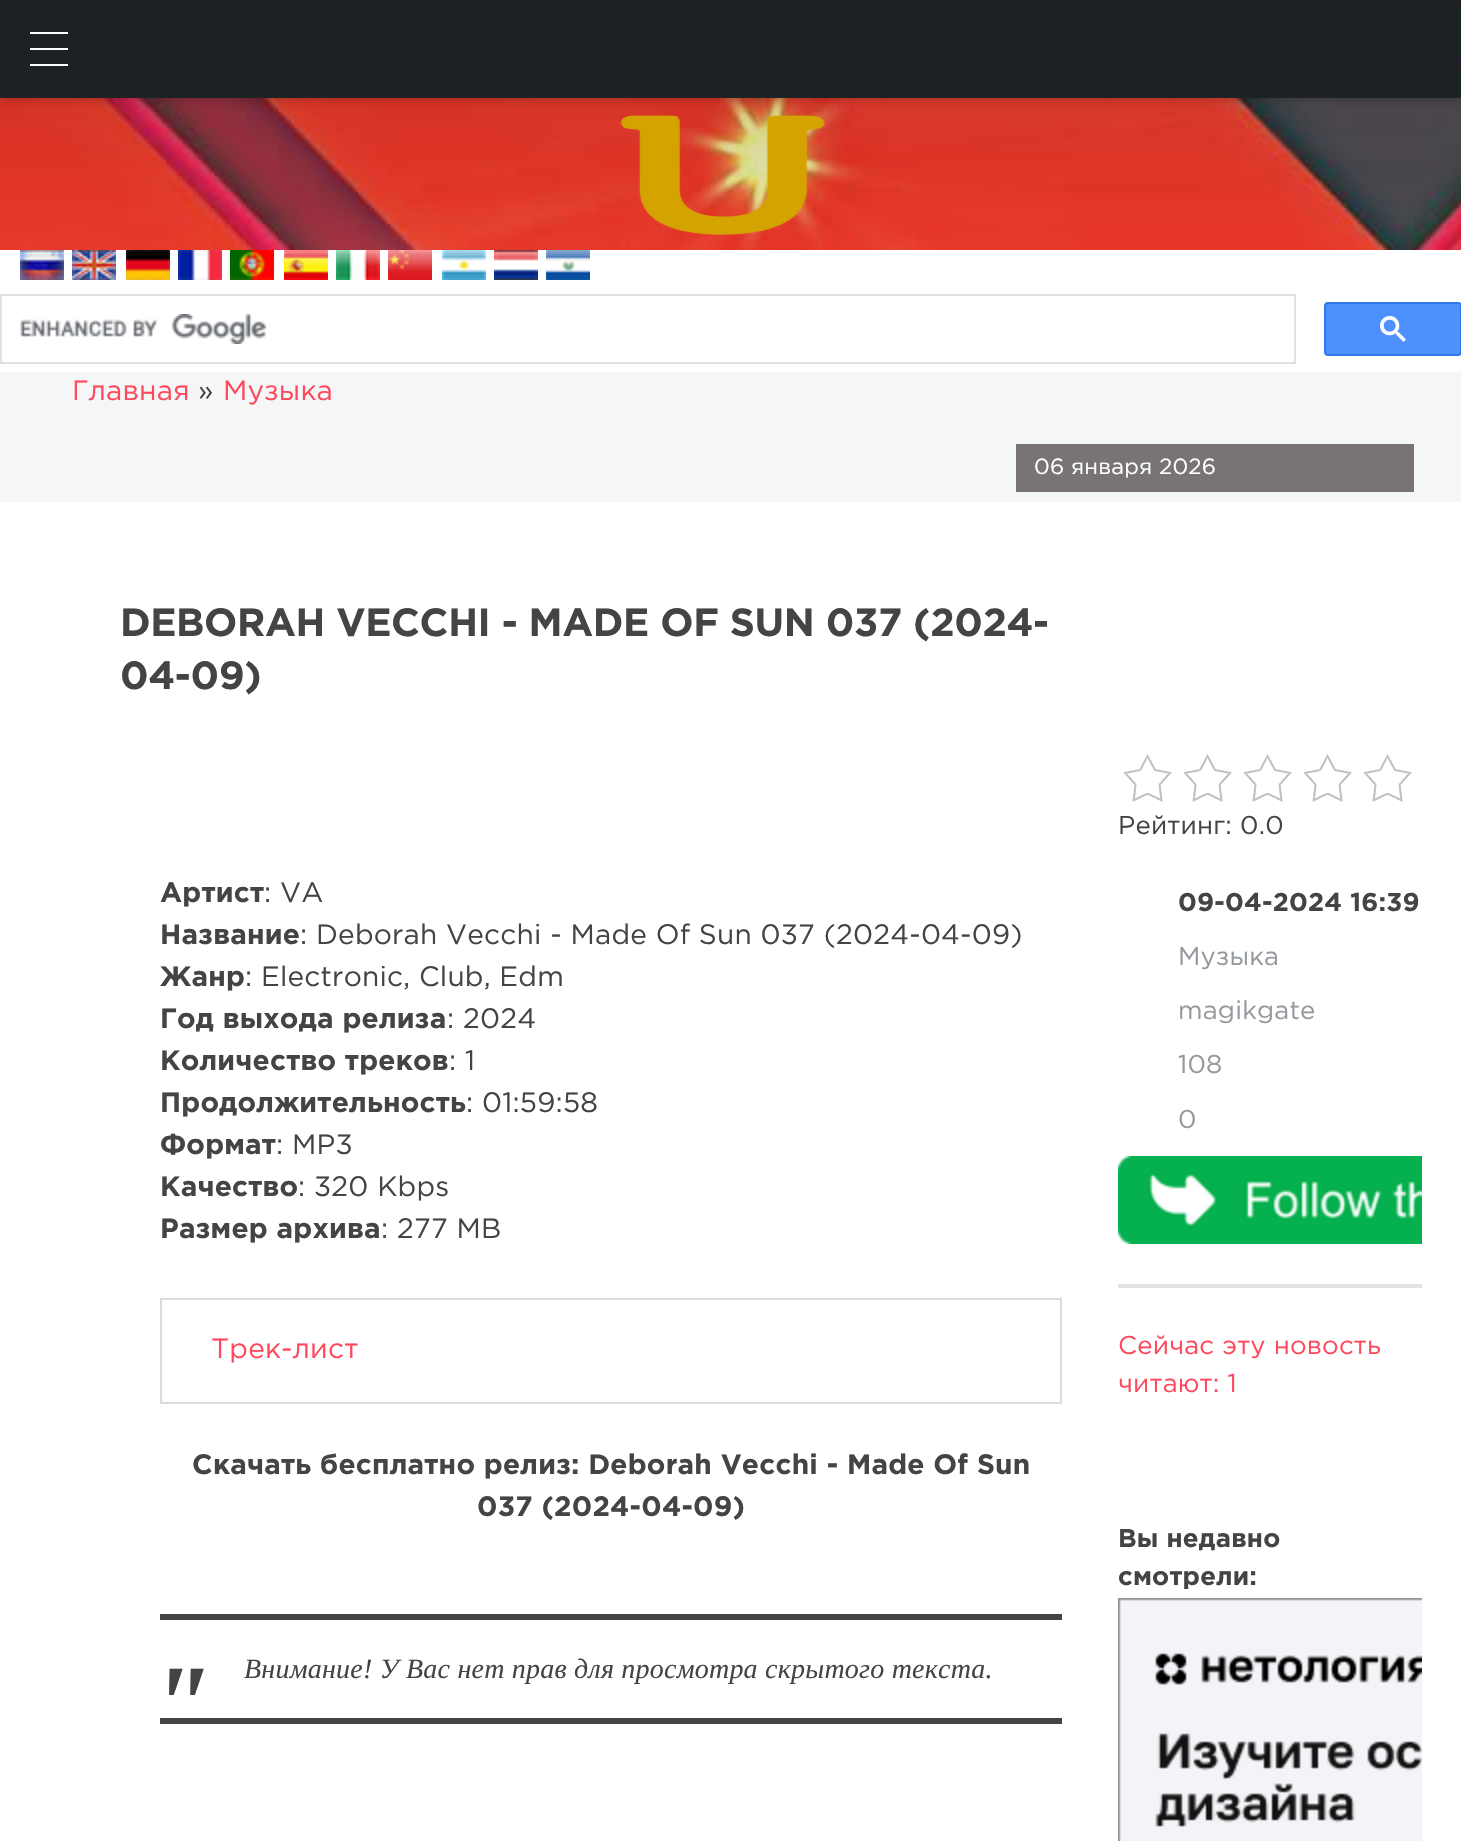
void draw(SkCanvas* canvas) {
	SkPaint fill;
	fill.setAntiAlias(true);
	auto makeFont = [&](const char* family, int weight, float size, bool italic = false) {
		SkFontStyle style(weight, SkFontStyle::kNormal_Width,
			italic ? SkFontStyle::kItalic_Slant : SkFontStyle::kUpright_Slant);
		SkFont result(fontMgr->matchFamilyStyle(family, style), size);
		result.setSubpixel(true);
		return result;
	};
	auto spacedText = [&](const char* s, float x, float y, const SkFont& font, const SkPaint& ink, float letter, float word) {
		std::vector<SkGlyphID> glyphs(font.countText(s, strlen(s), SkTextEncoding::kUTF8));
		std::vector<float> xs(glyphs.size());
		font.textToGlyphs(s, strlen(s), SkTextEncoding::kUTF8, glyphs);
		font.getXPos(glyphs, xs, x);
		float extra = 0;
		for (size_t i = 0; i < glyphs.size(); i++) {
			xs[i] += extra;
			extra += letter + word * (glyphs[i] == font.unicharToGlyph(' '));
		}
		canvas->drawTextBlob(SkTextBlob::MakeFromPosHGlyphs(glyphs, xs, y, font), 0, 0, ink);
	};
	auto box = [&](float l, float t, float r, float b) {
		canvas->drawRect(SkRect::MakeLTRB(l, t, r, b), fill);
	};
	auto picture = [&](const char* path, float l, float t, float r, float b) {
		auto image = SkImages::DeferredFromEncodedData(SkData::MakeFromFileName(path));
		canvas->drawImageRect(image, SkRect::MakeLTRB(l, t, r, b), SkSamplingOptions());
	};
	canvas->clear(0xFFFFFFFF);
	picture("image0.png", 0, 98, 1461, 250);
	fill.setColor(0x33000000);
	fill.setMaskFilter(SkMaskFilter::MakeBlur(kNormal_SkBlurStyle, 5));
	canvas->drawRect(SkRect::MakeLTRB(0, 2, 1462, 100), fill);
	fill.setMaskFilter(nullptr);
	fill.setColor(0xFF22282C);
	box(0, 0, 1461, 98);
	{
		const SkColor colors[] = {0x33000000, 0x00000000};
		const float stops[] = {0, 1};
		const SkPoint ends[] = {{731, 0}, {731, 460}};
		fill.setShader(SkGradientShader::MakeLinear(ends, colors, stops, 2, SkTileMode::kClamp));
		fill.setAlpha(255);
	}
	box(0, 0, 1461, 250);
	fill.setShader(nullptr);
	fill.setColor(0xFFFFFFFF);
	box(30, 32, 68, 34);
	box(30, 48, 68, 50);
	box(30, 64, 68, 66);
	picture("image1.png", 620, 115, 825, 235);
	picture("image2.png", 20, 250, 64, 280);
	picture("image3.png", 72, 250, 116, 280);
	picture("image4.png", 126, 250, 170, 280);
	picture("image5.png", 178, 250, 222, 280);
	picture("image6.png", 230, 250, 274, 280);
	picture("image7.png", 284, 250, 328, 280);
	picture("image8.png", 336, 250, 380, 280);
	picture("image9.png", 388, 250, 432, 280);
	picture("image10.png", 442, 250, 486, 280);
	picture("image11.png", 494, 250, 538, 280);
	picture("image12.png", 546, 250, 590, 280);
	fill.setStyle(SkPaint::kStroke_Style);
	fill.setStrokeWidth(2);
	fill.setColor(0xFFDFE1E5);
	canvas->drawRect(SkRect::MakeLTRB(1, 295, 1295, 363), fill);
	picture("image13.png", 20, 314, 266, 344);
	fill.setStyle(SkPaint::kFill_Style);
	fill.setColor(0xFF4D90FE);
	canvas->drawRoundRect(SkRect::MakeLTRB(1325, 303, 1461, 355), 3, 3, fill);
	fill.setStyle(SkPaint::kStroke_Style);
	fill.setColor(0xFF3079ED);
	canvas->drawRoundRect(SkRect::MakeLTRB(1325, 303, 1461, 355), 3, 3, fill);
	picture("image14.png", 1380, 316, 1406, 342);
	fill.setStyle(SkPaint::kFill_Style);
	fill.setColor(0xFFF4F6F7);
	box(0, 372, 1461, 502);
	fill.setColor(0xFF787474);
	box(1016, 444, 1414, 492);
	fill.setStyle(SkPaint::kStroke_Style);
	fill.setColor(0xFFD9DCDE);
	canvas->drawRect(SkRect::MakeLTRB(161, 1299, 1061, 1403), fill);
	fill.setStyle(SkPaint::kFill_Style);
	fill.setColor(0xFF444444);
	box(160, 1614, 1062, 1620);
	box(160, 1718, 1062, 1724);
	picture("image15.png", 1123, 754, 1412, 802);
	picture("image16.png", 1118, 1156, 1422, 1244);
	fill.setColor(0xFFE3E4E6);
	box(1118, 1284, 1422, 1288);
	picture("image17.png", 1118, 1598, 1422, 1841);
	auto font1 = makeFont("Gotham", 400, 28);
	fill.setColor(0xFFFF485B);
	spacedText("Главная", 72, 400, font1, fill, 0.22f, 0);
	fill.setColor(0xFF444444);
	spacedText("»", 198, 400, font1, fill, 0.22f, 0);
	fill.setColor(0xFFFF485B);
	spacedText("Музыка", 223, 400, font1, fill, 0.22f, 0);
	auto font2 = makeFont("Gotham", 400, 22);
	fill.setColor(0xFFFFFFFF);
	spacedText("06 января 2026", 1034, 474, font2, fill, 0.22f, 0);
	auto font3 = makeFont("Gotham", 700, 39.2f);
	fill.setColor(0xFF444444);
	spacedText("DEBORAH VECCHI - MADE OF SUN 037 (2024-", 120, 636, font3, fill, -0.4f, 0);
	spacedText("04-09)", 120, 689, font3, fill, -0.4f, 0);
	auto font4 = makeFont("Gotham", 700, 28);
	spacedText("Артист", 160, 902, font4, fill, 0.22f, 0);
	spacedText(": VA", 264, 902, font1, fill, 0.22f, 0);
	spacedText("Название", 160, 944, font4, fill, 0.22f, 0);
	spacedText(": Deborah Vecchi - Made Of Sun 037 (2024-04-09)", 300, 944, font1, fill, 0.22f, 0);
	spacedText("Жанр", 160, 986, font4, fill, 0.22f, 0);
	spacedText(": Electronic, Club, Edm", 245, 986, font1, fill, 0.22f, 0);
	spacedText("Год выхода релиза", 160, 1028, font4, fill, 0.22f, 0);
	spacedText(": 2024", 447, 1028, font1, fill, 0.22f, 0);
	spacedText("Количество треков", 160, 1070, font4, fill, 0.22f, 0);
	spacedText(": 1", 449, 1070, font1, fill, 0.22f, 0);
	spacedText("Продолжительность", 160, 1112, font4, fill, 0.22f, 0);
	spacedText(": 01:59:58", 466, 1112, font1, fill, 0.22f, 0);
	spacedText("Формат", 160, 1154, font4, fill, 0.22f, 0);
	spacedText(": MP3", 276, 1154, font1, fill, 0.22f, 0);
	spacedText("Качество", 160, 1196, font4, fill, 0.22f, 0);
	spacedText(": 320 Kbps", 298, 1196, font1, fill, 0.22f, 0);
	spacedText("Размер архива", 160, 1238, font4, fill, 0.22f, 0);
	spacedText(": 277 MB", 381, 1238, font1, fill, 0.22f, 0);
	fill.setColor(0xFFFF485B);
	spacedText("Трек-лист", 211, 1358, font1, fill, 0.22f, 0);
	fill.setColor(0xFF444444);
	spacedText("Cкачать бесплатно релиз: Deborah Vecchi - Made Of Sun", 192, 1474, font4, fill, 0.22f, 0);
	spacedText("037 (2024-04-09)", 477, 1516, font4, fill, 0.22f, 0);
	auto font5 = makeFont("Liberation Serif", 700, 112, true);
	spacedText("\"", 149, 1742, font5, fill, 0.22f, 0);
	auto font6 = makeFont("Liberation Serif", 400, 28, true);
	spacedText("Внимание! У Вас нет прав для просмотра скрытого текста.", 244, 1678, font6, fill, 0.22f, 0);
	auto font7 = makeFont("Gotham", 400, 25.75f);
	spacedText("Рейтинг: 0.0", 1118, 834, font7, fill, 0.22f, 0);
	auto font8 = makeFont("Gotham", 700, 25.75f);
	spacedText("09-04-2024 16:39", 1178, 911, font8, fill, 0.22f, 0);
	fill.setColor(0xFF94999E);
	spacedText("Музыка", 1178, 965, font7, fill, 0.22f, 0);
	spacedText("magikgate", 1178, 1019, font7, fill, 0.22f, 0);
	spacedText("108", 1178, 1073, font7, fill, 0.22f, 0);
	spacedText("0", 1178, 1128, font7, fill, 0.22f, 0);
	fill.setColor(0xFFFF485B);
	spacedText("Сейчас эту новость", 1118, 1354, font7, fill, 0.22f, 0);
	spacedText("читают: 1", 1118, 1392, font7, fill, 0.22f, 0);
	fill.setColor(0xFF444444);
	spacedText("Вы недавно", 1118, 1547, font8, fill, 0.22f, 0);
	spacedText("смотрели:", 1118, 1585, font8, fill, 0.22f, 0);
}
